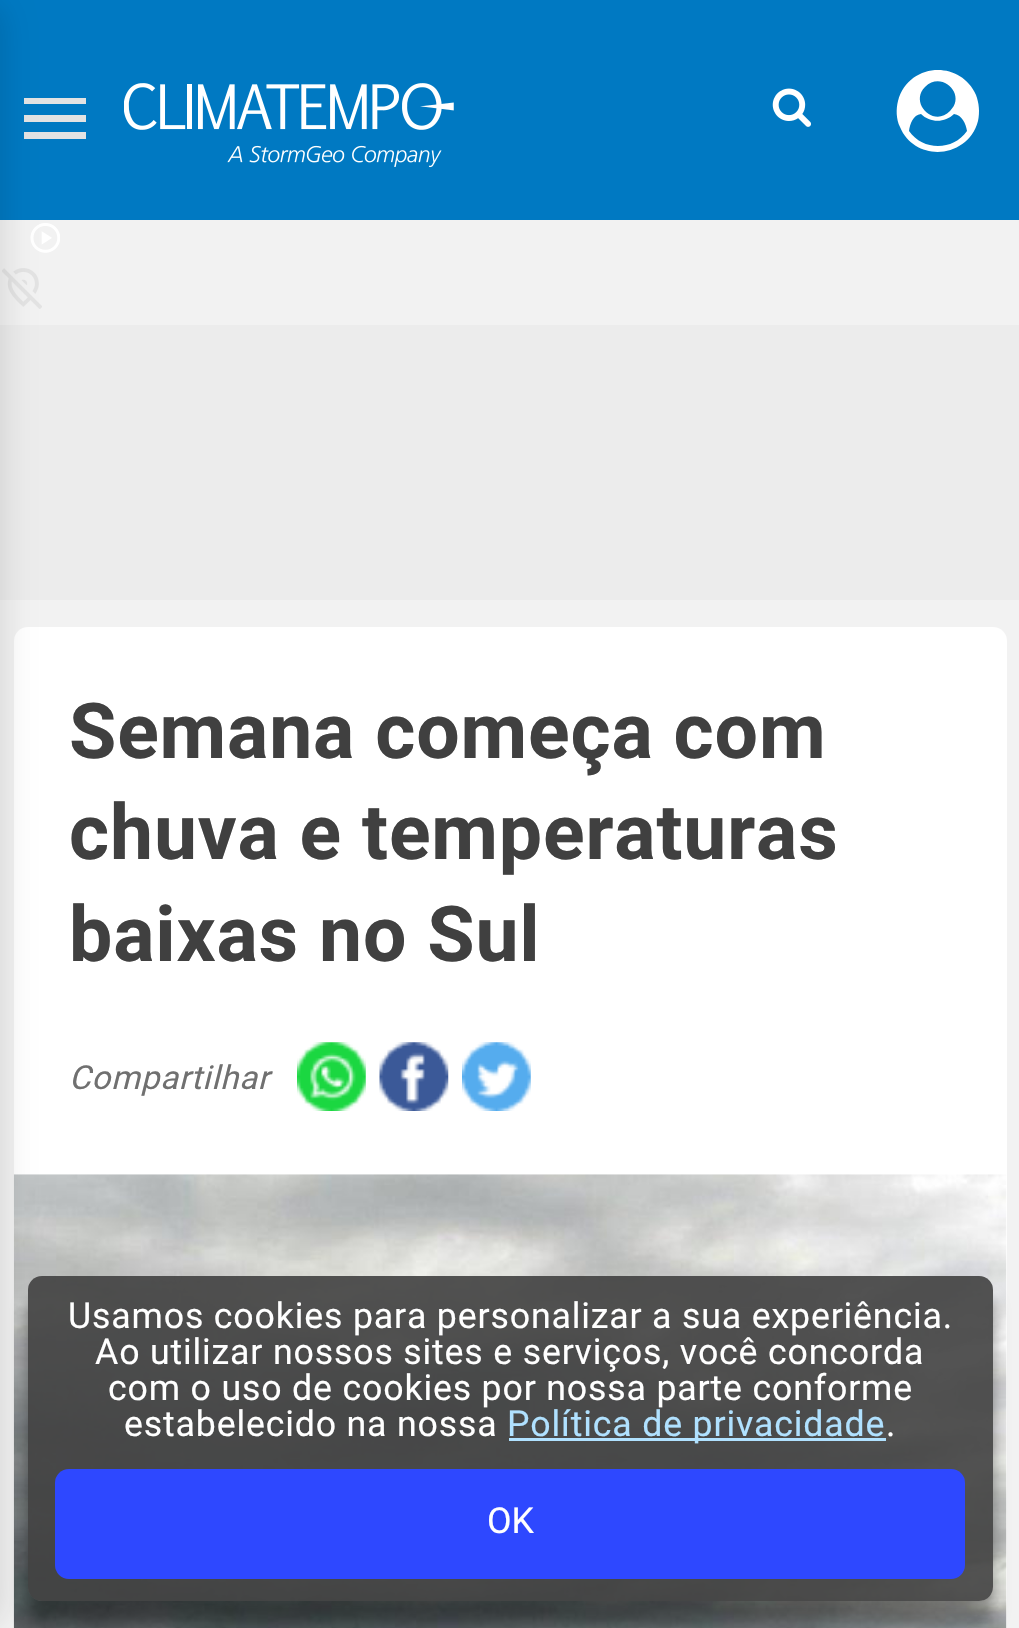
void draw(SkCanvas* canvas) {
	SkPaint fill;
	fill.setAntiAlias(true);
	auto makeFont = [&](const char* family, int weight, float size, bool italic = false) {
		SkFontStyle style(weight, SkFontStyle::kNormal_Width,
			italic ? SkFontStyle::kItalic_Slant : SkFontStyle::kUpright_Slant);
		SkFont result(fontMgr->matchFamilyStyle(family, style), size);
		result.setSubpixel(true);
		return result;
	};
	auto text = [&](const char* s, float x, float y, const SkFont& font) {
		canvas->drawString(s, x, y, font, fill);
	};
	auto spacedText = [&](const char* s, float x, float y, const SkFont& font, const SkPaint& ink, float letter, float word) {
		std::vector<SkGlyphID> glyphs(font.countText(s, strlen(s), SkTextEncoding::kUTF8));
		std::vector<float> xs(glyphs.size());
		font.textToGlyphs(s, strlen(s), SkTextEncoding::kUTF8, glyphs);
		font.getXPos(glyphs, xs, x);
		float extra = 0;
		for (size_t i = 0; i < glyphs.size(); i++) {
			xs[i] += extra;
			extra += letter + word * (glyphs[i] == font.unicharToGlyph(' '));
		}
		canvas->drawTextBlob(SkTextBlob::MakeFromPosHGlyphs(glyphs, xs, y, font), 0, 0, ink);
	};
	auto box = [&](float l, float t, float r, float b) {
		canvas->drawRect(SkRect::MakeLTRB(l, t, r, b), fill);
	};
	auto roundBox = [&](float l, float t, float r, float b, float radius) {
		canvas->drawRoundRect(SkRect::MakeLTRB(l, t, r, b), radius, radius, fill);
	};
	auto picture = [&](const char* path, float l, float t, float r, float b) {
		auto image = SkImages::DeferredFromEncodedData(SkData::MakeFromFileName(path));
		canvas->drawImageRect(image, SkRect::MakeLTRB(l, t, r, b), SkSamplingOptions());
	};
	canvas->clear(0xFFF2F2F2);
	fill.setColor(0xFF0079C2);
	box(0, 0, 1019, 220);
	fill.setColor(0xFFE3E3E3);
	canvas->drawPath(SkPathBuilder().moveTo(24, 139).lineTo(24, 132).lineTo(86, 132).lineTo(86, 139).close().moveTo(24, 122).lineTo(24, 115).lineTo(86, 115).lineTo(86, 122).close().moveTo(24, 104).lineTo(24, 98).lineTo(86, 98).lineTo(86, 104).close().detach(), fill);
	picture("image0.png", 124, 83, 454, 168);
	picture("image1.png", 772, 88, 811, 127);
	fill.setColor(0xFFFFFFFF);
	canvas->drawPath(SkPathBuilder().moveTo(967, 131).cubicTo(966, 124, 962, 115, 954, 114).cubicTo(945, 123, 930, 123, 921, 114).cubicTo(913, 115, 910, 124, 909, 131).cubicTo(923, 151, 953, 151, 967, 131).close().moveTo(950, 111).cubicTo(967, 95, 942, 70, 925, 87).cubicTo(909, 103, 934, 128, 950, 111).close().moveTo(976, 95).cubicTo(979, 103, 980, 112, 978, 121).cubicTo(968, 159, 915, 163, 900, 127).cubicTo(896, 119, 896, 109, 898, 101).cubicTo(908, 63, 960, 59, 976, 95).close().detach(), fill);
	picture("image2.png", 30, 223, 60, 253);
	picture("image3.png", 2, 268, 42, 309);
	fill.setColor(0xFFECECEC);
	box(0, 325, 1019, 600);
	fill.setColor(0xFFFFFFFF);
	roundBox(14, 627, 1007, 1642, 14);
	picture("image7.png", 13, 1174, 1007, 1628);
	fill.setColor(0x1A000000);
	fill.setMaskFilter(SkMaskFilter::MakeBlur(kNormal_SkBlurStyle, 14));
	canvas->drawRoundRect(SkRect::MakeLTRB(-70, 0, 6, 1628), 28, 28, fill);
	fill.setMaskFilter(nullptr);
	picture("image4.png", 297, 1042, 366, 1111);
	picture("image5.png", 379, 1042, 449, 1111);
	picture("image6.png", 462, 1042, 531, 1111);
	canvas->save();
	canvas->clipPath(SkPathBuilder(SkPathFillType::kEvenOdd).moveTo(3, 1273).lineTo(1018, 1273).lineTo(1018, 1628).lineTo(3, 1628).close().moveTo(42, 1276).lineTo(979, 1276).cubicTo(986.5f, 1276, 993, 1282.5f, 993, 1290).lineTo(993, 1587).cubicTo(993, 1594.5f, 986.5f, 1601, 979, 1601).lineTo(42, 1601).cubicTo(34.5f, 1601, 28, 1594.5f, 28, 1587).lineTo(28, 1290).cubicTo(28, 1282.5f, 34.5f, 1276, 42, 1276).close().detach(), true);
	fill.setColor(0x69000000);
	fill.setMaskFilter(SkMaskFilter::MakeBlur(kNormal_SkBlurStyle, 8));
	canvas->drawRoundRect(SkRect::MakeLTRB(28, 1298, 993, 1623), 14, 14, fill);
	fill.setMaskFilter(nullptr);
	canvas->restore();
	fill.setColor(0xE6404040);
	roundBox(28, 1276, 993, 1601, 14);
	fill.setColor(0xFFB0E1FF);
	box(509, 1438, 886, 1441);
	fill.setColor(0xFF2E48FF);
	roundBox(55, 1469, 965, 1579, 14);
	auto font1 = makeFont("Roboto", 700, 77);
	fill.setColor(0xFF404040);
	spacedText("Semana começa com", 69, 758, font1, fill, 0.82f, 0);
	spacedText("chuva e temperaturas", 69, 859, font1, fill, 0.82f, 0);
	spacedText("baixas no Sul", 69, 961, font1, fill, 0.82f, 0);
	auto font2 = makeFont("Roboto", 400, 33, true);
	fill.setColor(0xFF707070);
	spacedText("Compartilhar", 69, 1089, font2, fill, 0.82f, 0);
	auto font3 = makeFont("Roboto", 400, 35.75f);
	fill.setColor(0xFFFFFFFF);
	spacedText("Usamos cookies para personalizar a sua experiência.", 68, 1328, font3, fill, 0.82f, 0);
	spacedText("Ao utilizar nossos sites e serviços, você concorda", 95, 1364, font3, fill, 0.82f, 0);
	spacedText("com o uso de cookies por nossa parte conforme", 108, 1400, font3, fill, 0.82f, 0);
	spacedText("estabelecido na nossa", 124, 1436, font3, fill, 0.82f, 0);
	fill.setColor(0xFFB0E1FF);
	spacedText("Política de privacidade", 507, 1436, font3, fill, 0.82f, 0);
	fill.setColor(0xFFFFFFFF);
	spacedText(".", 886, 1436, font3, fill, 0.82f, 0);
	text("OK", 487, 1533, font3);
}
